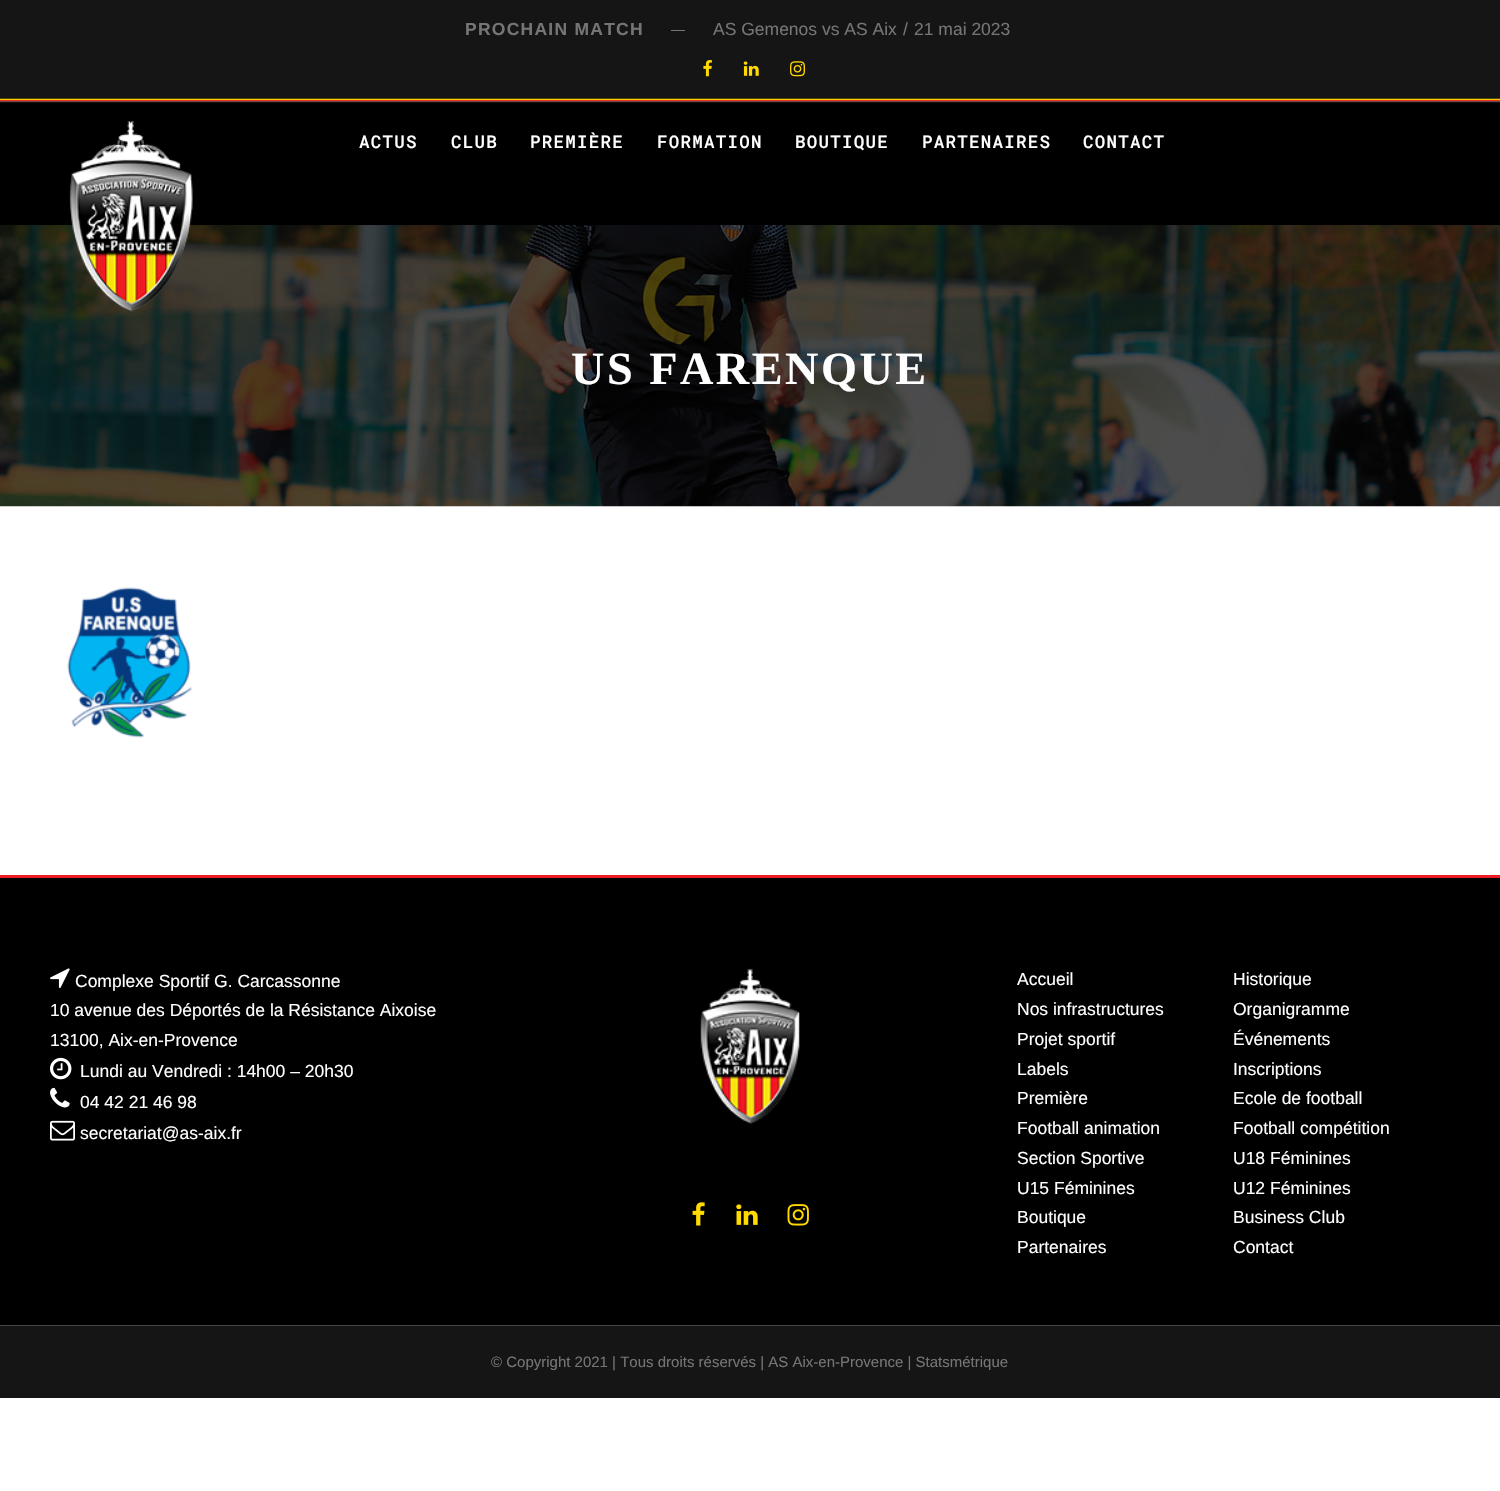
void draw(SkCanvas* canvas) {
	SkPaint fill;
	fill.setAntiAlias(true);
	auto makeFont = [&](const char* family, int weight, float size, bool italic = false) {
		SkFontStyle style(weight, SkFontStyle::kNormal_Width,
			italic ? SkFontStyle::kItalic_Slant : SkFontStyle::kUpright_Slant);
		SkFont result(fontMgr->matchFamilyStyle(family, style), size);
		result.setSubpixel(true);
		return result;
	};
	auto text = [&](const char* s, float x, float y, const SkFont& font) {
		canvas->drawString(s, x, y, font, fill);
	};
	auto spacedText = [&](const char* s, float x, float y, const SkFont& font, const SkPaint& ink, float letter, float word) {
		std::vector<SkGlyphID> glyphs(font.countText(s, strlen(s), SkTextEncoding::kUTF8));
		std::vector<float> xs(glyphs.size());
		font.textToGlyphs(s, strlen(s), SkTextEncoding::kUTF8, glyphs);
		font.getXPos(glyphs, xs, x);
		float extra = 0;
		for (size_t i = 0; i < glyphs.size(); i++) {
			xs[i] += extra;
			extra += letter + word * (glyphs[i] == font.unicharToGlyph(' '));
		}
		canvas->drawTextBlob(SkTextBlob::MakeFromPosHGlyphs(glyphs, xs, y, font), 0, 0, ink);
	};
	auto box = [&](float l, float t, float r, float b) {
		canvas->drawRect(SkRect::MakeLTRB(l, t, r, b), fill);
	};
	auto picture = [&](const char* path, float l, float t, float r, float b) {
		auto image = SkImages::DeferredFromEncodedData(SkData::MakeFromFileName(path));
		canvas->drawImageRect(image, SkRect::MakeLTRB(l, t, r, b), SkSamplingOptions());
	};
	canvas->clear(0xFFFFFFFF);
	fill.setColor(0xFF151515);
	box(0, 0, 1500, 103);
	picture("image0.png", 0, 98, 1500, 101);
	fill.setColor(0xFF704547);
	box(0, 101, 1500, 102);
	fill.setColor(0xFF757575);
	box(671, 30, 685, 31);
	picture("image1.png", 703, 60, 712, 77);
	picture("image2.png", 743, 61, 759, 76);
	picture("image3.png", 790, 61, 805, 77);
	fill.setColor(0xFF000000);
	box(0, 103, 1500, 225);
	picture("image5.png", 0, 225, 1500, 507);
	picture("image4.png", 69, 121, 193, 312);
	picture("image6.png", 67, 587, 193, 738);
	box(0, 878, 1500, 1325);
	fill.setColor(0xFFED1C24);
	box(0, 875, 1500, 878);
	picture("image7.png", 50, 968, 70, 988);
	picture("image8.png", 50, 1057, 72, 1080);
	picture("image9.png", 50, 1087, 70, 1108);
	picture("image10.png", 50, 1120, 75, 1141);
	picture("image11.png", 700, 968, 800, 1124);
	picture("image12.png", 692, 1202, 705, 1226);
	picture("image13.png", 736, 1204, 758, 1225);
	picture("image14.png", 787, 1204, 809, 1226);
	fill.setColor(0xFF151515);
	box(0, 1326, 1500, 1398);
	fill.setColor(0xFF444444);
	box(0, 1325, 1500, 1326);
	auto font1 = makeFont("Liberation Sans", 700, 17.5f);
	fill.setColor(0xFF757575);
	spacedText("PROCHAIN MATCH", 465, 35, font1, fill, 1.25f, 0);
	auto font2 = makeFont("Liberation Sans", 400, 17.5f);
	text("AS Gemenos vs AS Aix", 713, 35, font2);
	text("/", 903, 35, font2);
	text("21 mai 2023", 914, 35, font2);
	auto font3 = makeFont("Roboto Mono", 500, 17.5f);
	fill.setColor(0xFFFFFFFF);
	spacedText("ACTUS", 359, 148, font3, fill, 1.25f, 0);
	spacedText("CLUB", 451, 148, font3, fill, 1.25f, 0);
	spacedText("PREMIÈRE", 530, 148, font3, fill, 1.25f, 0);
	spacedText("FORMATION", 657, 148, font3, fill, 1.25f, 0);
	spacedText("BOUTIQUE", 795, 148, font3, fill, 1.25f, 0);
	spacedText("PARTENAIRES", 922, 148, font3, fill, 1.25f, 0);
	spacedText("CONTACT", 1083, 148, font3, fill, 1.25f, 0);
	auto font4 = makeFont("Liberation Serif", 700, 46.25f);
	spacedText("US FARENQUE", 571, 384, font4, fill, 2.5f, 0);
	text("Complexe Sportif G. Carcassonne", 75, 987, font2);
	text("10 avenue des Déportés de la Résistance Aixoise", 50, 1016, font2);
	text("13100, Aix-en-Provence", 50, 1046, font2);
	text("Lundi au Vendredi : 14h00 – 20h30", 80, 1077, font2);
	text("04 42 21 46 98", 80, 1108, font2);
	text("secretariat@as-aix.fr", 80, 1139, font2);
	text("Accueil", 1017, 985, font2);
	text("Historique", 1233, 985, font2);
	text("Nos infrastructures", 1017, 1015, font2);
	text("Organigramme", 1233, 1015, font2);
	text("Projet sportif", 1017, 1045, font2);
	text("Événements", 1233, 1045, font2);
	text("Labels", 1017, 1075, font2);
	text("Inscriptions", 1233, 1075, font2);
	text("Première", 1017, 1104, font2);
	text("Ecole de football", 1233, 1104, font2);
	text("Football animation", 1017, 1134, font2);
	text("Football compétition", 1233, 1134, font2);
	text("Section Sportive", 1017, 1164, font2);
	text("U18 Féminines", 1233, 1164, font2);
	text("U15 Féminines", 1017, 1194, font2);
	text("U12 Féminines", 1233, 1194, font2);
	text("Boutique", 1017, 1223, font2);
	text("Business Club", 1233, 1223, font2);
	text("Partenaires", 1017, 1253, font2);
	text("Contact", 1233, 1253, font2);
	auto font5 = makeFont("Liberation Sans", 400, 15);
	fill.setColor(0xFF757575);
	text("© Copyright 2021 | Tous droits réservés | AS Aix-en-Provence | Statsmétrique", 491, 1367, font5);
}
